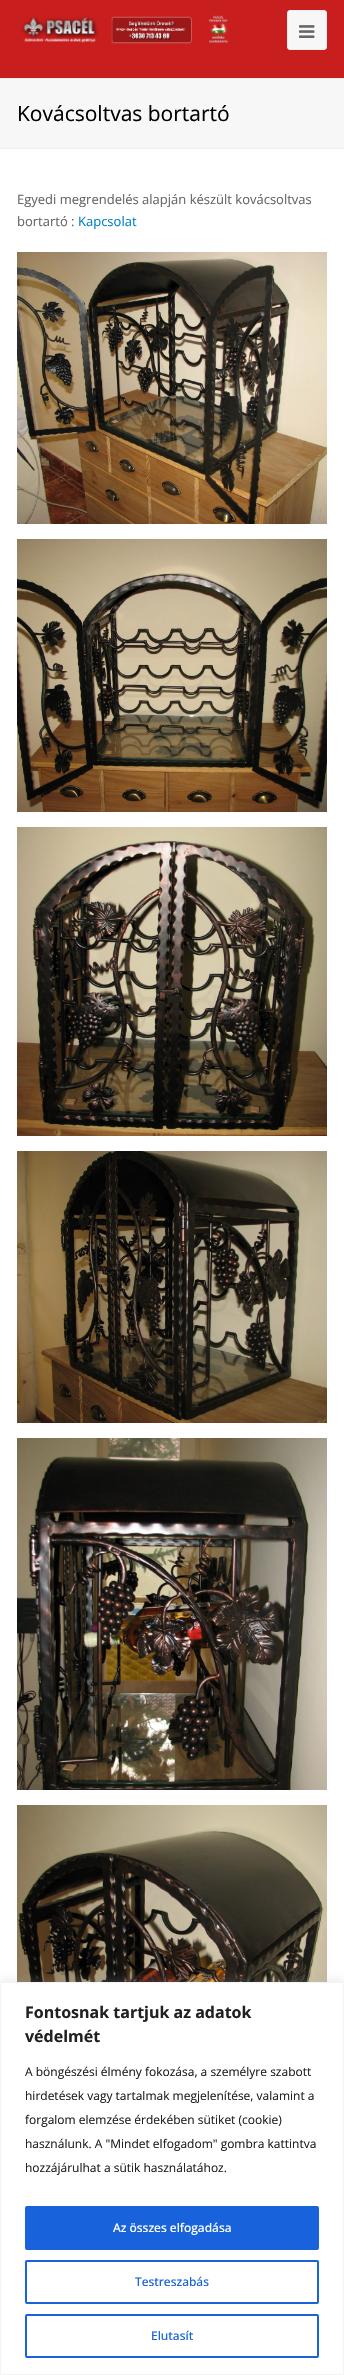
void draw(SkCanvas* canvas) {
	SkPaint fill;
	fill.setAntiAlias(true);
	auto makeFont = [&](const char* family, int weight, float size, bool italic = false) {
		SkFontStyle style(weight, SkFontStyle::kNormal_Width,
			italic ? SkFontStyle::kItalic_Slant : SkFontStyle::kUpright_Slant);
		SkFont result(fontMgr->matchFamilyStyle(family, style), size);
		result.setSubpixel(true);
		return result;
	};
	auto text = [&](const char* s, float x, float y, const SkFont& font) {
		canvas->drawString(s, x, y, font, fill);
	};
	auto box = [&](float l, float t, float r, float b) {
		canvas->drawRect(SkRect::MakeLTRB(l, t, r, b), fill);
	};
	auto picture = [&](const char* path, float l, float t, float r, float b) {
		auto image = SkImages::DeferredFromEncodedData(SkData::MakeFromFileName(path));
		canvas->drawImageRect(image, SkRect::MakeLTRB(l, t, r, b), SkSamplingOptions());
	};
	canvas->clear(0xFFFFFFFF);
	fill.setColor(0xFFC91E1E);
	box(0, 0, 344, 78);
	picture("image0.png", 21, 15, 229, 44);
	fill.setColor(0xFFF7F7F7);
	canvas->drawRoundRect(SkRect::MakeLTRB(287.5f, 10.5f, 326.5f, 49.5f), 2.5f, 2.5f, fill);
	fill.setStyle(SkPaint::kStroke_Style);
	fill.setStrokeWidth(1);
	fill.setColor(0xFFEEEEEE);
	canvas->drawRoundRect(SkRect::MakeLTRB(287.5f, 10.5f, 326.5f, 49.5f), 2.5f, 2.5f, fill);
	picture("image1.png", 299, 25, 315, 38);
	fill.setStyle(SkPaint::kFill_Style);
	fill.setColor(0xFFF7F7F7);
	box(0, 79, 344, 148);
	fill.setColor(0xFFEEEEEE);
	box(0, 78, 344, 79);
	box(0, 148, 344, 149);
	picture("image2.png", 17, 252, 327, 524);
	picture("image3.png", 17, 539, 327, 812);
	picture("image4.png", 17, 827, 327, 1136);
	picture("image5.png", 17, 1151, 327, 1423);
	picture("image6.png", 17, 1438, 327, 1790);
	picture("image7.png", 17, 1805, 327, 1982);
	fill.setColor(0x4DACABAB);
	fill.setMaskFilter(SkMaskFilter::MakeBlur(kNormal_SkBlurStyle, 5));
	canvas->drawRect(SkRect::MakeLTRB(0, 1981, 344, 2374), fill);
	fill.setMaskFilter(nullptr);
	fill.setColor(0xFFFFFFFF);
	canvas->drawRect(SkRect::MakeLTRB(0.5f, 1982.5f, 343.5f, 2374.5f), fill);
	fill.setStyle(SkPaint::kStroke_Style);
	fill.setColor(0xFFF4F4F4);
	canvas->drawRect(SkRect::MakeLTRB(0.5f, 1982.5f, 343.5f, 2374.5f), fill);
	fill.setStyle(SkPaint::kFill_Style);
	fill.setColor(0xFF1863DC);
	canvas->drawRoundRect(SkRect::MakeLTRB(26, 2207, 318, 2249), 1, 1, fill);
	fill.setStyle(SkPaint::kStroke_Style);
	fill.setStrokeWidth(2);
	canvas->drawRoundRect(SkRect::MakeLTRB(26, 2207, 318, 2249), 1, 1, fill);
	canvas->drawRoundRect(SkRect::MakeLTRB(26, 2261, 318, 2303), 1, 1, fill);
	canvas->drawRoundRect(SkRect::MakeLTRB(26, 2315, 318, 2357), 1, 1, fill);
	auto font1 = makeFont("Open Sans", 400, 21);
	fill.setStyle(SkPaint::kFill_Style);
	fill.setColor(0xFF000000);
	text("Kovácsoltvas bortartó", 17, 121, font1);
	auto font2 = makeFont("Open Sans", 400, 13);
	fill.setColor(0xFF666666);
	text("Egyedi megrendelés alapján készült kovácsoltvas", 17, 204, font2);
	text("bortartó :", 17, 226, font2);
	fill.setColor(0xFF0081CC);
	text("Kapcsolat", 78, 226, font2);
	auto font3 = makeFont("Open Sans", 700, 16);
	fill.setColor(0xFF212121);
	text("Fontosnak tartjuk az adatok", 25, 2018, font3);
	text("védelmét", 25, 2042, font3);
	auto font4 = makeFont("Open Sans", 400, 12);
	text("A böngészési élmény fokozása, a személyre szabott", 25, 2076, font4);
	text("hirdetések vagy tartalmak megjelenítése, valamint a", 25, 2100, font4);
	text("forgalom elemzése érdekében sütiket (cookie)", 25, 2124, font4);
	text("használunk. A \"Mindet elfogadom\" gombra kattintva", 25, 2148, font4);
	text("hozzájárulhat a sütik használatához.", 25, 2172, font4);
	auto font5 = makeFont("Open Sans", 500, 12);
	fill.setColor(0xFFFFFFFF);
	text("Az összes elfogadása", 113, 2232, font5);
	fill.setColor(0xFF1863DC);
	text("Testreszabás", 135, 2286, font5);
	text("Elutasít", 151, 2340, font5);
}
